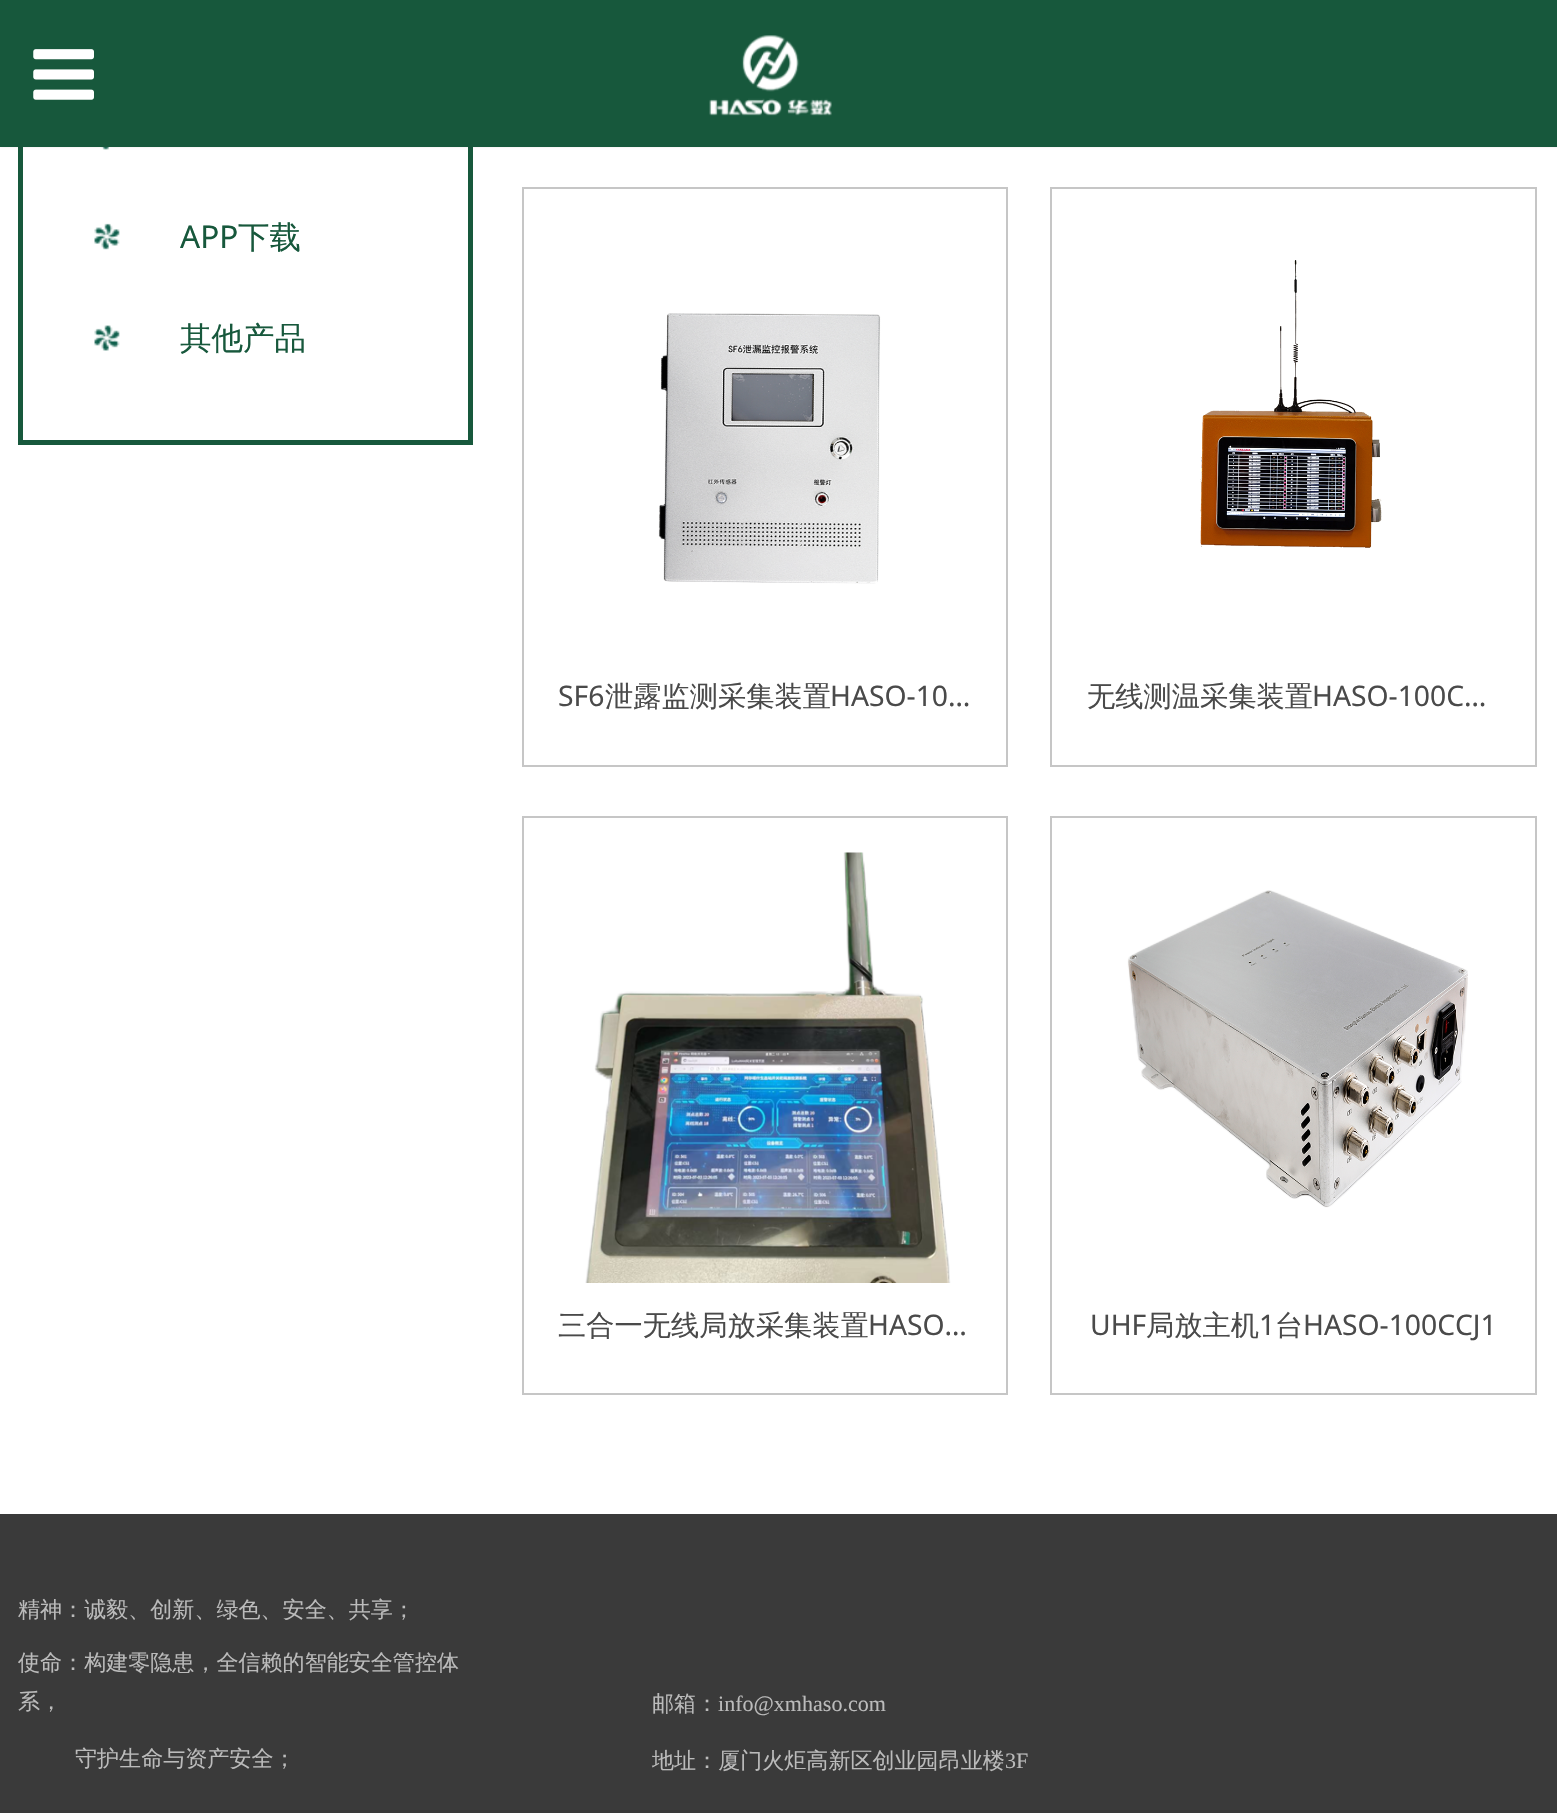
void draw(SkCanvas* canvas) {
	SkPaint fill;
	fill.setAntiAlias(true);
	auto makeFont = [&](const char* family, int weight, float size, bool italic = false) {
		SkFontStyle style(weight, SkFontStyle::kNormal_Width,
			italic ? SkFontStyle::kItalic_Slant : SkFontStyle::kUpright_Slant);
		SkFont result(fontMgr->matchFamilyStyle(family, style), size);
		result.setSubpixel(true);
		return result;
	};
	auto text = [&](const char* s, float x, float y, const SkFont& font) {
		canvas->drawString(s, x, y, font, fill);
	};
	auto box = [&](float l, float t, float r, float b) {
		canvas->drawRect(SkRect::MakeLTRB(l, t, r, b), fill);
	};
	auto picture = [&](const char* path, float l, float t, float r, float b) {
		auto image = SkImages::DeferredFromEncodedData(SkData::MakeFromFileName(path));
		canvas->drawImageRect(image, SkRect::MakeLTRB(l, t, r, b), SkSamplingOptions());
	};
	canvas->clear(0xFFFFFFFF);
	fill.setStyle(SkPaint::kStroke_Style);
	fill.setStrokeWidth(5);
	fill.setColor(0xFF17583C);
	canvas->drawRect(SkRect::MakeLTRB(20.5f, -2.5f, 470.5f, 442.5f), fill);
	picture("image2.png", 101, 147, 109, 150);
	fill.setStyle(SkPaint::kFill_Style);
	fill.setColor(0x1A000000);
	fill.setMaskFilter(SkMaskFilter::MakeBlur(kNormal_SkBlurStyle, 1));
	canvas->drawRect(SkRect::MakeLTRB(0, 0, 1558, 147), fill);
	fill.setMaskFilter(nullptr);
	fill.setColor(0xFF17583C);
	box(0, 0, 1557, 147);
	picture("image0.png", 33, 49, 94, 100);
	picture("image1.png", 709, 35, 832, 116);
	picture("image3.png", 94, 223, 120, 250);
	picture("image4.png", 94, 325, 120, 351);
	fill.setStyle(SkPaint::kStroke_Style);
	fill.setStrokeWidth(2);
	fill.setColor(0xFFC6C6C6);
	canvas->drawRect(SkRect::MakeLTRB(523, 188, 1007, 766), fill);
	picture("image5.png", 658, 313, 881, 584);
	canvas->drawRect(SkRect::MakeLTRB(1051, 188, 1536, 766), fill);
	picture("image6.png", 1200, 260, 1382, 548);
	canvas->drawRect(SkRect::MakeLTRB(523, 817, 1007, 1394), fill);
	picture("image7.png", 585, 852, 951, 1283);
	canvas->drawRect(SkRect::MakeLTRB(1051, 817, 1536, 1394), fill);
	picture("image8.png", 1127, 890, 1468, 1208);
	fill.setStyle(SkPaint::kFill_Style);
	fill.setColor(0xFF3A3A3A);
	box(0, 1514, 1557, 1813);
	auto font1 = makeFont("Noto Sans", 400, 31.5f);
	fill.setColor(0xFF17583C);
	text("APP", 180, 248, font1);
	auto font2 = makeFont("WenQuanYi Zen Hei", 500, 31.5f);
	text("下载", 238, 248, font2);
	text("其他产品", 180, 349, font2);
	auto font3 = makeFont("Noto Sans", 400, 28.25f);
	fill.setColor(0xFF4A4A4A);
	text("SF6", 558, 706, font3);
	auto font4 = makeFont("WenQuanYi Zen Hei", 500, 28.25f);
	text("泄露监测采集装置", 605, 706, font4);
	text("HASO-10…", 830, 706, font3);
	text("无线测温采集装置", 1087, 706, font4);
	text("HASO-100C…", 1312, 706, font3);
	text("三合一无线局放采集装置", 558, 1335, font4);
	text("HASO…", 868, 1335, font3);
	text("UHF", 1090, 1335, font3);
	text("局放主机", 1146, 1335, font4);
	text("1", 1259, 1335, font3);
	text("台", 1275, 1335, font4);
	text("HASO-100CCJ1", 1303, 1335, font3);
	auto font5 = makeFont("WenQuanYi Zen Hei", 500, 22.05f);
	fill.setColor(0xFFBBBBBB);
	text("精神：诚毅、创新、绿色、安全、共享；", 18, 1617, font5);
	text("使命：构建零隐患，全信赖的智能安全管控体", 18, 1670, font5);
	text("系，", 18, 1709, font5);
	text("守护生命与资产安全；", 75, 1766, font5);
	text("邮箱：", 652, 1711, font5);
	auto font6 = makeFont("Liberation Serif", 400, 22.05f);
	text("info@xmhaso.com", 718, 1711, font6);
	text("地址：厦门火炬高新区创业园昂业楼", 652, 1768, font5);
	text("3F", 1005, 1768, font6);
}
